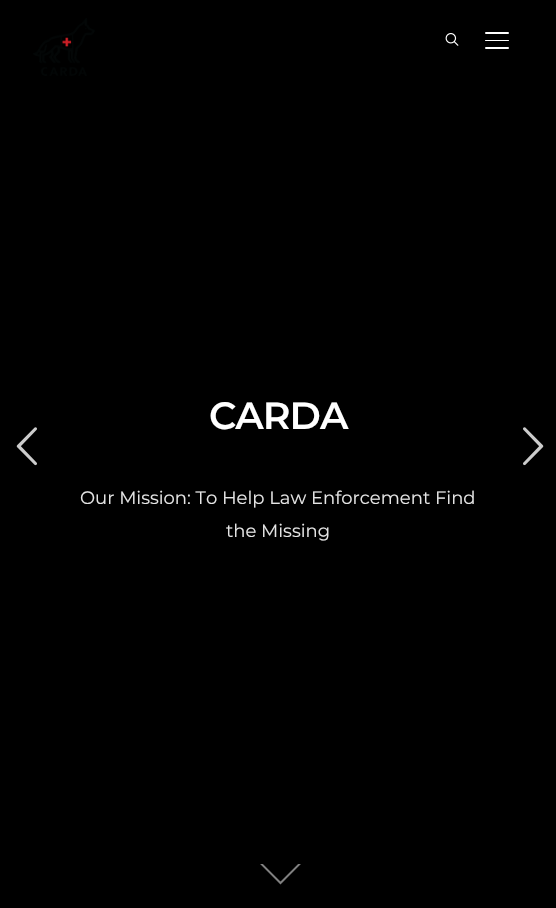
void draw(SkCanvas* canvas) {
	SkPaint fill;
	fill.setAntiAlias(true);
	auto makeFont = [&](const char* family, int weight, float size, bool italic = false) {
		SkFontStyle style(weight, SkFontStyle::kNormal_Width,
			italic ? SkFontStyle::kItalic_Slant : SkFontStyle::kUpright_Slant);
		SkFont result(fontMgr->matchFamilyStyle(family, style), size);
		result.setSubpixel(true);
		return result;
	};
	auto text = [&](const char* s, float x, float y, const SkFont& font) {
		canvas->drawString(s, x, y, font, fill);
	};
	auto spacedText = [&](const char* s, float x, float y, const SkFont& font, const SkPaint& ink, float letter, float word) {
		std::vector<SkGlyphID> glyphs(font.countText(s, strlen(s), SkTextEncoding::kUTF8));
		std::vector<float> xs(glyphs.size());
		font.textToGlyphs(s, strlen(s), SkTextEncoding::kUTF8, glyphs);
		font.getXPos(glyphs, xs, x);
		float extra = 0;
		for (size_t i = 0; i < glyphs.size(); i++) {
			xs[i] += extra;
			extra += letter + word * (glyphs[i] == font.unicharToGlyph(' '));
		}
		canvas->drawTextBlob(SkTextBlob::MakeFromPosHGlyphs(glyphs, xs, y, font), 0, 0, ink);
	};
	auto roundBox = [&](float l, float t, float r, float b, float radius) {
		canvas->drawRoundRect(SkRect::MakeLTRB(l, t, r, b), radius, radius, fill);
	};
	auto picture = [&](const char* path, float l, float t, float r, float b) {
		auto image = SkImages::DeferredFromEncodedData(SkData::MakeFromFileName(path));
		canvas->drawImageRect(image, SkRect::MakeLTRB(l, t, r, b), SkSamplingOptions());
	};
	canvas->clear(0xFF000000);
	picture("image0.png", 33, 18, 95, 76);
	picture("image1.png", 445, 33, 459, 46);
	fill.setColor(0xFFFFFFFF);
	roundBox(485, 32, 509, 34, 1);
	roundBox(485, 40, 509, 41, 0.5f);
	roundBox(485, 47, 509, 49, 1);
	picture("image2.png", 16, 427, 37, 466);
	picture("image3.png", 523, 427, 544, 466);
	canvas->save();
	canvas->clipRect(SkRect::MakeLTRB(251, 864, 320, 888));
	fill.setStyle(SkPaint::kStroke_Style);
	fill.setStrokeWidth(2);
	fill.setColor(0xFF808080);
	canvas->drawPath(SkPathBuilder().moveTo(280.5f, 843).lineTo(300.5f, 863).lineTo(280.5f, 883).lineTo(260.5f, 863).close().detach(), fill);
	canvas->restore();
	auto font1 = makeFont("Montserrat", 600, 38);
	fill.setStyle(SkPaint::kFill_Style);
	fill.setColor(0xFFFFFFFF);
	spacedText("CARDA", 209, 429, font1, fill, -1, 0);
	auto font2 = makeFont("Montserrat", 400, 18);
	fill.setColor(0xFFE6E6E6);
	text("Our Mission: To Help Law Enforcement Find", 80, 504, font2);
	text("the Missing", 226, 537, font2);
}
